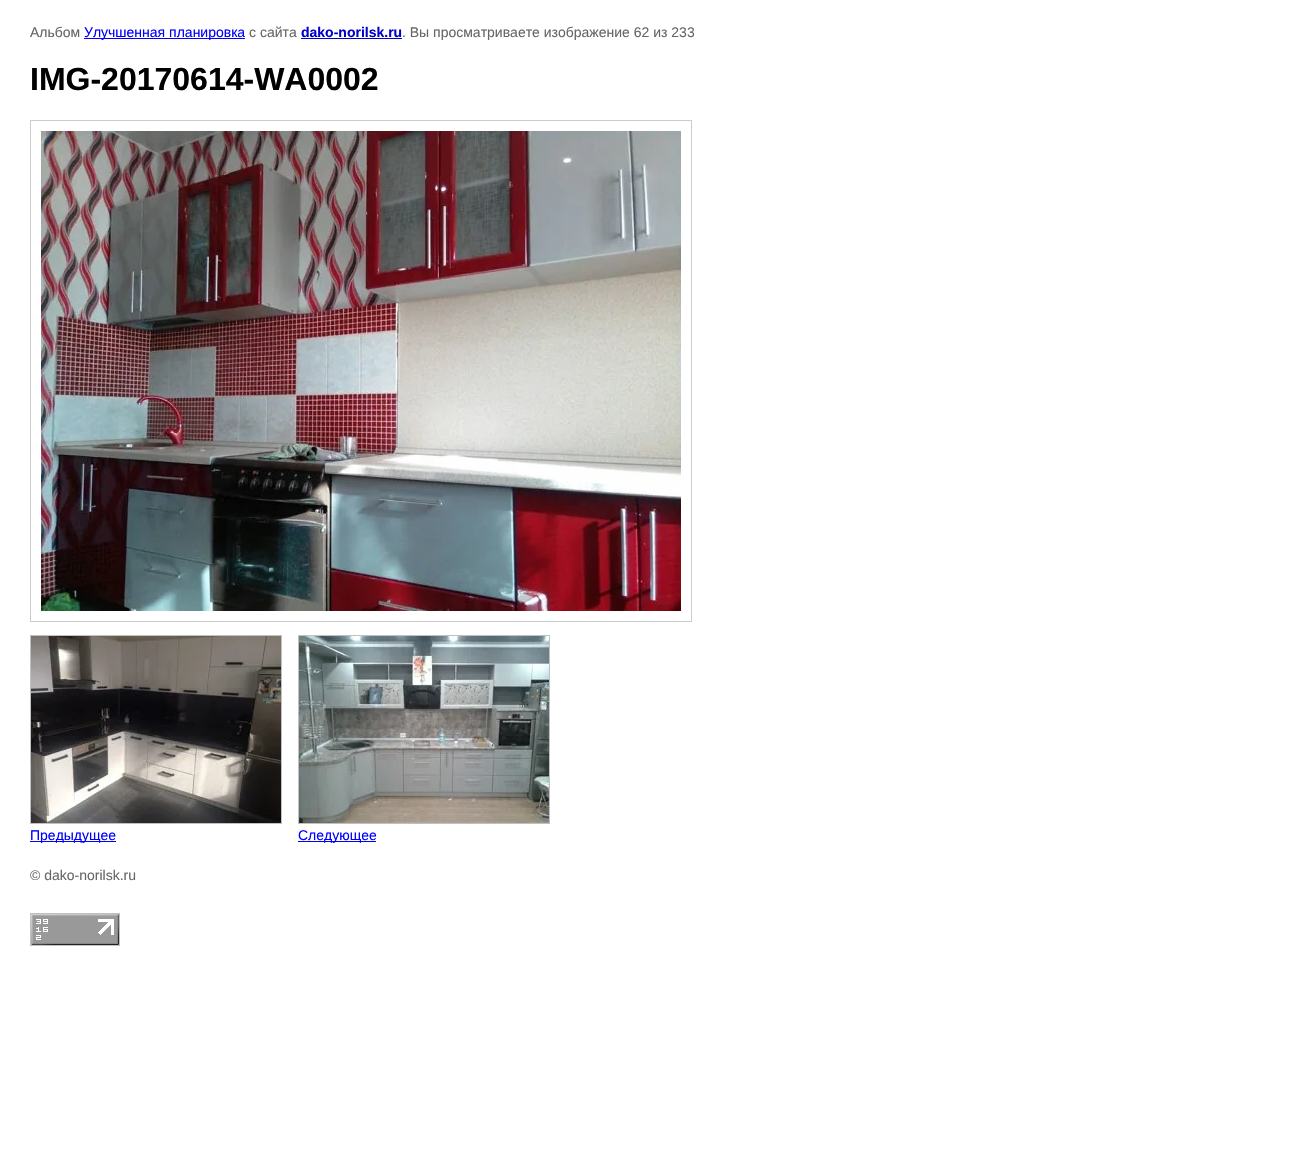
void draw(SkCanvas* canvas) {
	SkPaint fill;
	fill.setAntiAlias(true);
	auto makeFont = [&](const char* family, int weight, float size, bool italic = false) {
		SkFontStyle style(weight, SkFontStyle::kNormal_Width,
			italic ? SkFontStyle::kItalic_Slant : SkFontStyle::kUpright_Slant);
		SkFont result(fontMgr->matchFamilyStyle(family, style), size);
		result.setSubpixel(true);
		return result;
	};
	auto text = [&](const char* s, float x, float y, const SkFont& font) {
		canvas->drawString(s, x, y, font, fill);
	};
	auto box = [&](float l, float t, float r, float b) {
		canvas->drawRect(SkRect::MakeLTRB(l, t, r, b), fill);
	};
	auto picture = [&](const char* path, float l, float t, float r, float b) {
		auto image = SkImages::DeferredFromEncodedData(SkData::MakeFromFileName(path));
		canvas->drawImageRect(image, SkRect::MakeLTRB(l, t, r, b), SkSamplingOptions());
	};
	canvas->clear(0xFFFFFFFF);
	fill.setColor(0xFF0000FF);
	box(84, 38, 245, 39);
	fill.setColor(0xFF0000CC);
	box(301, 38, 402, 39);
	fill.setStyle(SkPaint::kStroke_Style);
	fill.setStrokeWidth(1);
	fill.setColor(0xFFCCCCCC);
	canvas->drawRect(SkRect::MakeLTRB(30.5f, 120.5f, 691.5f, 621.5f), fill);
	picture("image0.png", 41, 131, 681, 611);
	fill.setColor(0xFFC0C0C0);
	canvas->drawRect(SkRect::MakeLTRB(30.5f, 635.5f, 281.5f, 823.5f), fill);
	picture("image1.png", 31, 636, 281, 823);
	fill.setStyle(SkPaint::kFill_Style);
	fill.setColor(0xFF0000FF);
	box(30, 841, 116, 842);
	fill.setStyle(SkPaint::kStroke_Style);
	fill.setColor(0xFFC0C0C0);
	canvas->drawRect(SkRect::MakeLTRB(298.5f, 635.5f, 549.5f, 823.5f), fill);
	picture("image2.png", 299, 636, 549, 823);
	fill.setStyle(SkPaint::kFill_Style);
	fill.setColor(0xFF0000FF);
	box(298, 841, 376, 842);
	fill.setStyle(SkPaint::kStroke_Style);
	fill.setColor(0xFFC0C0C0);
	canvas->drawRect(SkRect::MakeLTRB(30.5f, 913.5f, 119.5f, 945.5f), fill);
	picture("image3.png", 31, 914, 119, 945);
	auto font1 = makeFont("Liberation Sans", 400, 14);
	fill.setStyle(SkPaint::kFill_Style);
	fill.setColor(0xFF666666);
	text("Альбом", 30, 37, font1);
	fill.setColor(0xFF0000FF);
	text("Улучшенная планировка", 84, 37, font1);
	fill.setColor(0xFF666666);
	text("с сайта", 249, 37, font1);
	auto font2 = makeFont("Liberation Sans", 700, 14);
	fill.setColor(0xFF0000CC);
	text("dako-norilsk.ru", 301, 37, font2);
	fill.setColor(0xFF666666);
	text(". Вы просматриваете изображение 62 из 233", 402, 37, font1);
	auto font3 = makeFont("Liberation Sans", 700, 32);
	fill.setColor(0xFF000000);
	text("IMG-20170614-WA0002", 30, 90, font3);
	fill.setColor(0xFF0000FF);
	text("Предыдущее", 30, 840, font1);
	text("Следующее", 298, 840, font1);
	fill.setColor(0xFF666666);
	text("© dako-norilsk.ru", 30, 880, font1);
}
